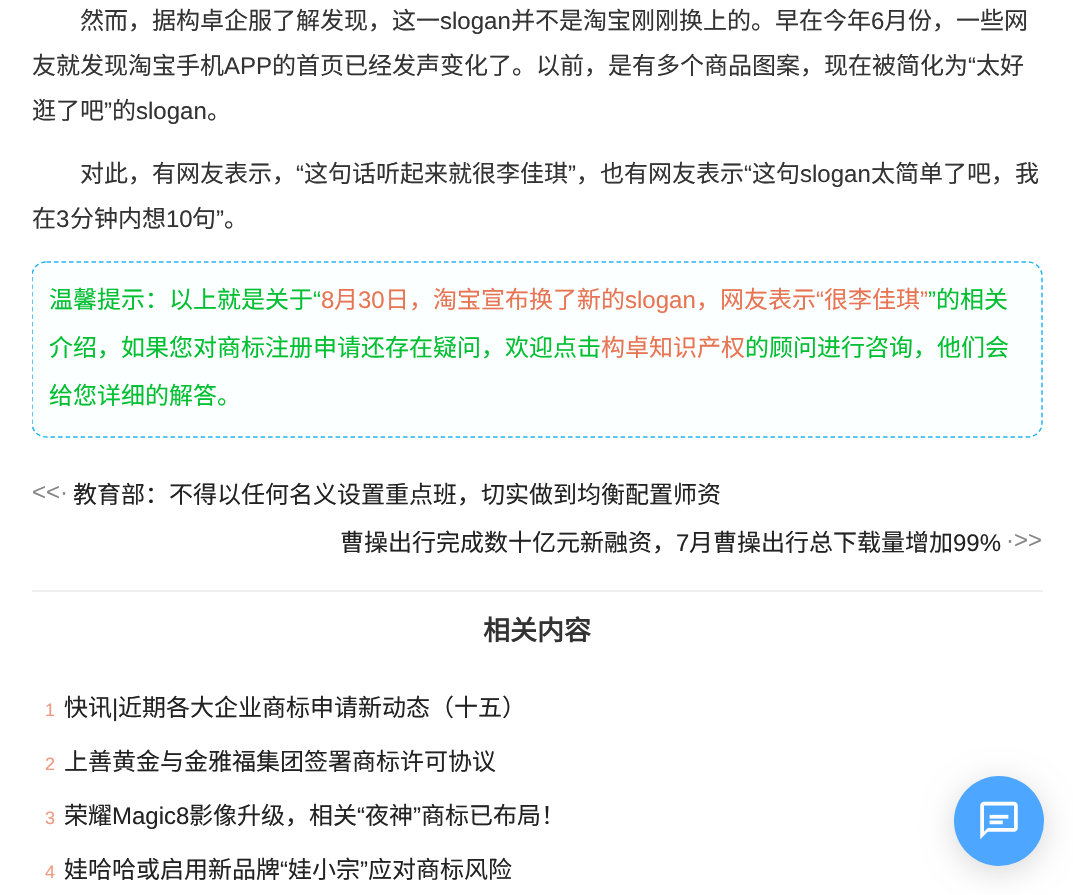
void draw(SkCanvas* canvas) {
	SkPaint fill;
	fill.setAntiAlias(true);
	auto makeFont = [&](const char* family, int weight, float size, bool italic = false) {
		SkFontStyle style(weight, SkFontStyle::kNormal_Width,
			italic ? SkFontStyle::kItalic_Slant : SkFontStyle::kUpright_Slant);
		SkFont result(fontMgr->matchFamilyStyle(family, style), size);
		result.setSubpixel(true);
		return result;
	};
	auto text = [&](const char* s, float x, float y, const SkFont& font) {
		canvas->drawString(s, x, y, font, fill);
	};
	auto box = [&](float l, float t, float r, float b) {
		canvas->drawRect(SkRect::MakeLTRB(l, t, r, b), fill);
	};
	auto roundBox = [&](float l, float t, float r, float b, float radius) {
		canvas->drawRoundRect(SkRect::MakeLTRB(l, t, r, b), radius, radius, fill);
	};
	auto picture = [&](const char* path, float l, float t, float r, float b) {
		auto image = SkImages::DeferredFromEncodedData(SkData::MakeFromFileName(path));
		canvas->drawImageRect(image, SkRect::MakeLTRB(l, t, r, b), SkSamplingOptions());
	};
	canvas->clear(0xFFFFFFFF);
	fill.setColor(0xFFFCFFFF);
	roundBox(32, 261, 1043, 438, 15);
	canvas->save();
	canvas->clipRect(SkRect::MakeLTRB(32, 0, 1043, 453));
	fill.setStyle(SkPaint::kStroke_Style);
	fill.setStrokeWidth(1.5f);
	fill.setColor(0xFF24B4F0);
	fill.setPathEffect(SkDashPathEffect::Make({{4.5f, 3}}, 0));
	canvas->drawPath(SkPathBuilder().moveTo(46.5f, 262).lineTo(1027.5f, 262).cubicTo(1035.5f, 262, 1042, 268, 1042, 276).lineTo(1042, 423).cubicTo(1042, 431, 1035.5f, 437, 1027.5f, 437).lineTo(46.5f, 437).cubicTo(38.5f, 437, 32, 431, 32, 423).lineTo(32, 276).cubicTo(32, 268, 38.5f, 262, 46.5f, 262).close().detach(), fill);
	fill.setPathEffect(nullptr);
	canvas->restore();
	fill.setStyle(SkPaint::kFill_Style);
	fill.setColor(0xFFEFEFEF);
	box(32, 590, 1043, 592);
	fill.setColor(0x26000000);
	fill.setMaskFilter(SkMaskFilter::MakeBlur(kNormal_SkBlurStyle, 15));
	canvas->drawRoundRect(SkRect::MakeLTRB(954, 782, 1044, 872), 45, 45, fill);
	fill.setMaskFilter(nullptr);
	fill.setColor(0xFF4DA6FF);
	canvas->drawCircle(999, 821, 45, fill);
	picture("image0.png", 980, 801, 1018, 840);
	auto font1 = makeFont("Noto Sans CJK SC", 400, 24);
	fill.setColor(0xFF333333);
	text("然而，据构卓企服了解发现，这一", 80, 29, font1);
	auto font2 = makeFont("Liberation Sans", 400, 24);
	text("slogan", 440, 29, font2);
	text("并不是淘宝刚刚换上的。早在今年", 511, 29, font1);
	text("6", 871, 29, font2);
	text("月份，一些网", 884, 29, font1);
	text("友就发现淘宝手机", 32, 74, font1);
	text("APP", 224, 74, font2);
	text("的首页已经发声变化了。以前，是有多个商品图案，现在被简化为", 272, 74, font1);
	text("“", 968, 74, font2);
	text("太好", 976, 74, font1);
	text("逛了吧", 32, 119, font1);
	text("”", 104, 119, font2);
	text("的", 112, 119, font1);
	text("slogan", 136, 119, font2);
	text("。", 207, 119, font1);
	text("对此，有网友表示，", 80, 182, font1);
	text("“", 296, 182, font2);
	text("这句话听起来就很李佳琪", 304, 182, font1);
	text("”", 568, 182, font2);
	text("，也有网友表示", 576, 182, font1);
	text("“", 744, 182, font2);
	text("这句", 752, 182, font1);
	text("slogan", 800, 182, font2);
	text("太简单了吧，我", 871, 182, font1);
	text("在", 32, 227, font1);
	text("3", 56, 227, font2);
	text("分钟内想", 70, 227, font1);
	text("10", 166, 227, font2);
	text("句", 192, 227, font1);
	text("”", 216, 227, font2);
	text("。", 224, 227, font1);
	fill.setColor(0xFF00BF30);
	text("温馨提示：以上就是关于", 49, 308, font1);
	text("“", 313, 308, font2);
	fill.setColor(0xFFE77452);
	text("8", 321, 308, font2);
	text("月", 334, 308, font1);
	text("30", 358, 308, font2);
	text("日，淘宝宣布换了新的", 385, 308, font1);
	text("slogan", 625, 308, font2);
	text("，网友表示", 696, 308, font1);
	text("“", 816, 308, font2);
	text("很李佳琪", 824, 308, font1);
	text("”", 920, 308, font2);
	fill.setColor(0xFF00BF30);
	text("”", 928, 308, font2);
	text("的相关", 936, 308, font1);
	text("介绍，如果您对商标注册申请还存在疑问，欢迎点击", 49, 356, font1);
	fill.setColor(0xFFE77452);
	text("构卓知识产权", 601, 356, font1);
	fill.setColor(0xFF00BF30);
	text("的顾问进行咨询，他们会", 745, 356, font1);
	text("给您详细的解答。", 49, 404, font1);
	fill.setColor(0xFF858585);
	text("<<·", 32, 500, font2);
	canvas->save();
	canvas->clipRect(SkRect::MakeLTRB(74, 476, 722, 512));
	fill.setColor(0xFF222222);
	text("教育部：不得以任何名义设置重点班，切实做到均衡配置师资", 73, 503, font1);
	canvas->restore();
	text("曹操出行完成数十亿元新融资，", 340, 551, font1);
	text("7", 676, 551, font2);
	text("月曹操出行总下载量增加", 689, 551, font1);
	text("99%", 953, 551, font2);
	fill.setColor(0xFF858585);
	text("·>>", 1006, 548, font2);
	auto font3 = makeFont("Noto Sans CJK SC", 700, 27);
	fill.setColor(0xFF333333);
	text("相关内容", 483, 640, font3);
	auto font4 = makeFont("Liberation Sans", 400, 18);
	fill.setColor(0xFFEE9980);
	text("1", 45, 716, font4);
	fill.setColor(0xFF222222);
	text("快讯", 64, 716, font1);
	text("|", 112, 716, font2);
	text("近期各大企业商标申请新动态（十五）", 118, 716, font1);
	fill.setColor(0xFFEE9980);
	text("2", 45, 770, font4);
	fill.setColor(0xFF222222);
	text("上善黄金与金雅福集团签署商标许可协议", 64, 770, font1);
	text("荣耀", 64, 824, font1);
	text("Magic8", 112, 824, font2);
	text("影像升级，相关", 189, 824, font1);
	text("“", 357, 824, font2);
	text("夜神", 365, 824, font1);
	text("”", 413, 824, font2);
	text("商标已布局！", 421, 824, font1);
	fill.setColor(0xFFEE9980);
	text("3", 45, 824, font4);
	fill.setColor(0xFF222222);
	text("娃哈哈或启用新品牌", 64, 878, font1);
	text("“", 280, 878, font2);
	text("娃小宗", 288, 878, font1);
	text("”", 360, 878, font2);
	text("应对商标风险", 368, 878, font1);
	fill.setColor(0xFFEE9980);
	text("4", 45, 878, font4);
}
